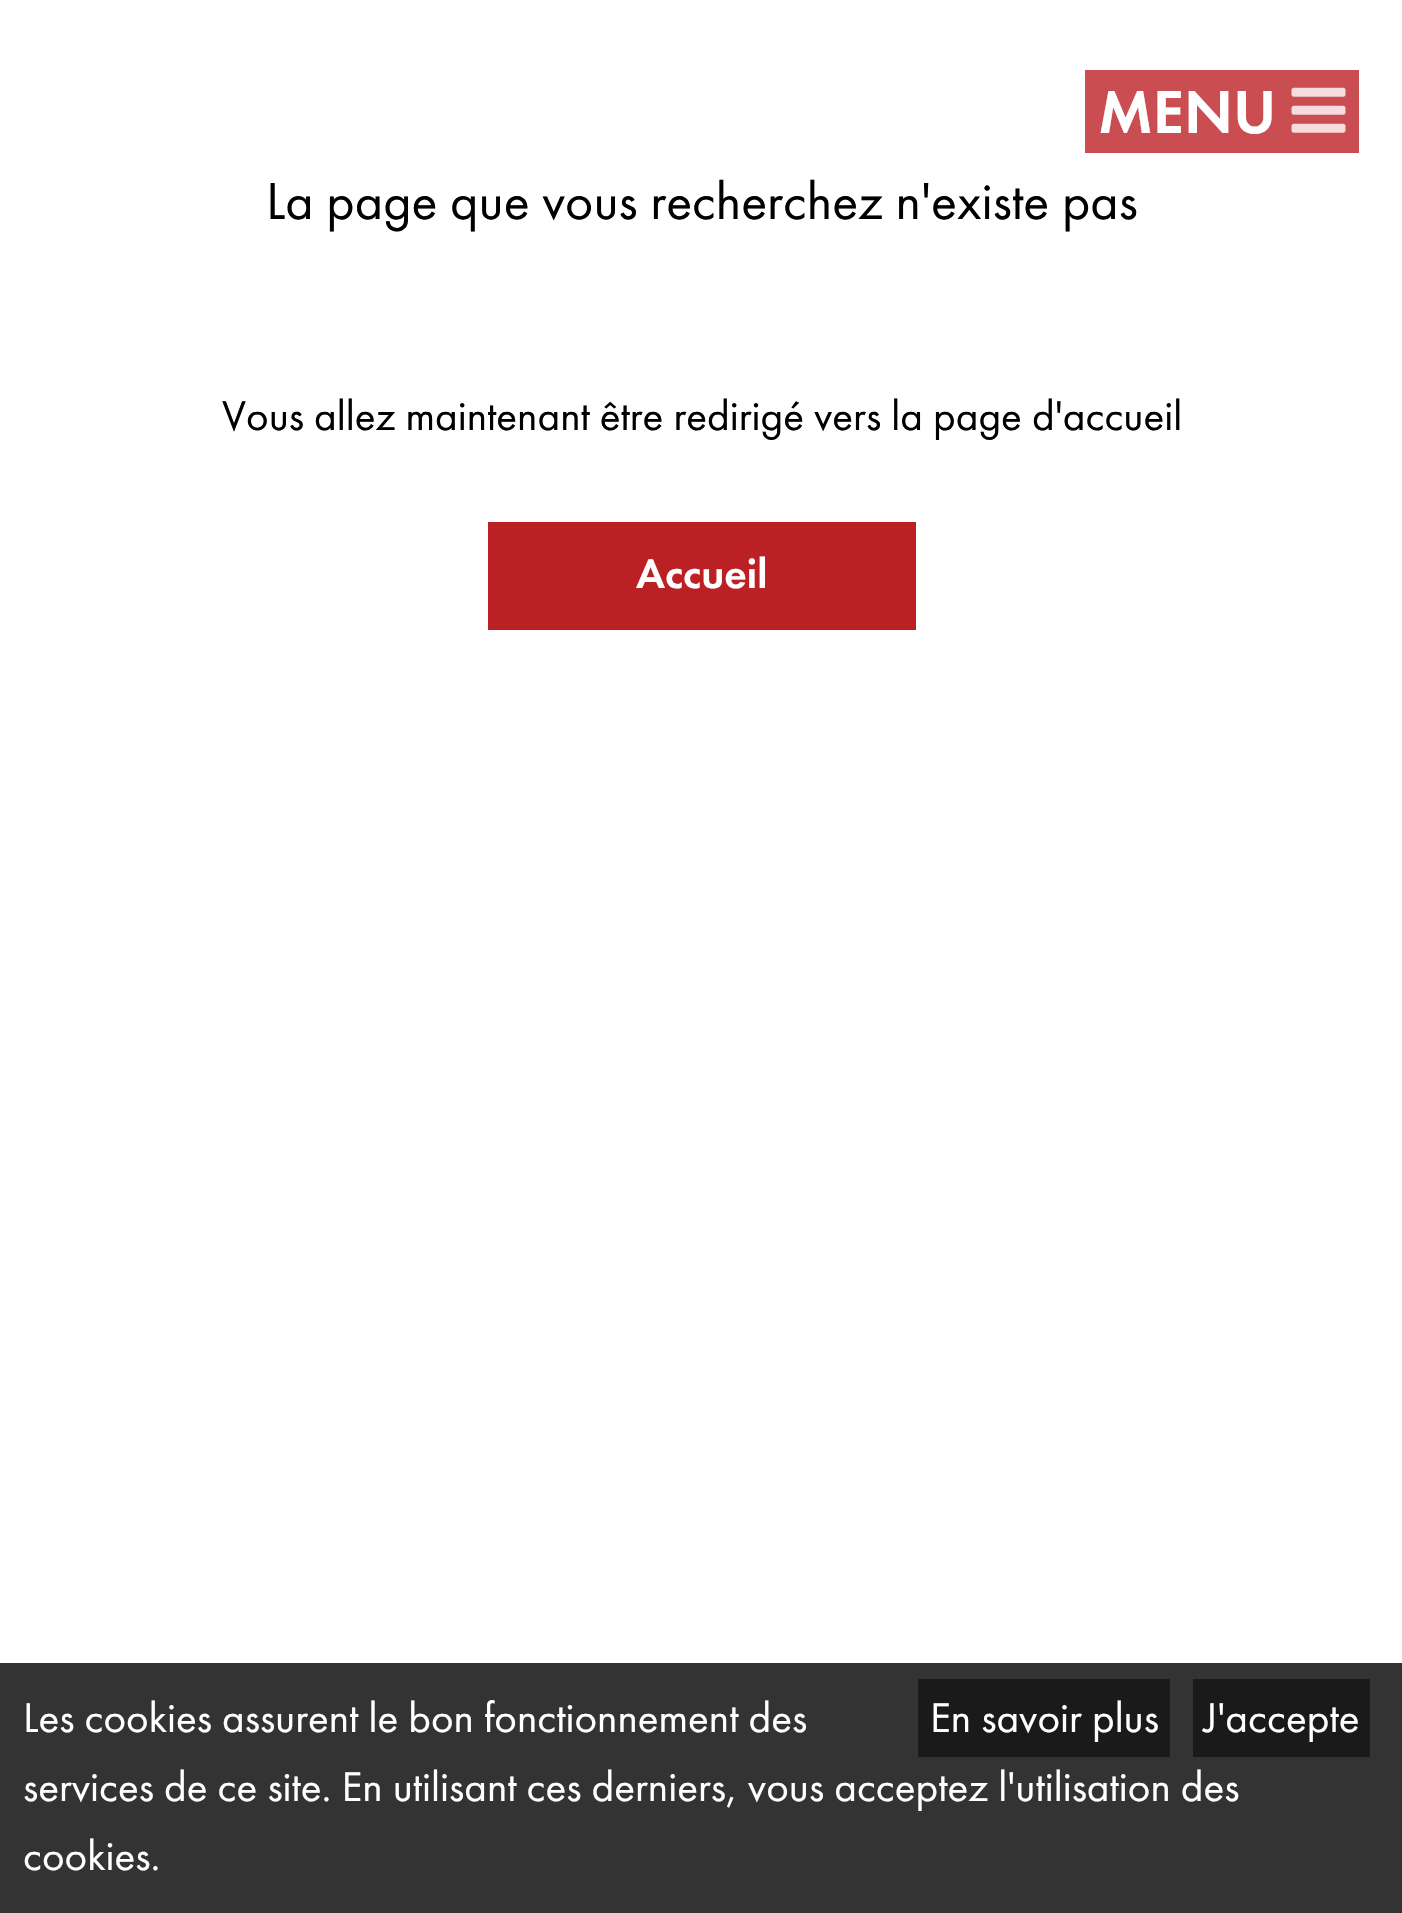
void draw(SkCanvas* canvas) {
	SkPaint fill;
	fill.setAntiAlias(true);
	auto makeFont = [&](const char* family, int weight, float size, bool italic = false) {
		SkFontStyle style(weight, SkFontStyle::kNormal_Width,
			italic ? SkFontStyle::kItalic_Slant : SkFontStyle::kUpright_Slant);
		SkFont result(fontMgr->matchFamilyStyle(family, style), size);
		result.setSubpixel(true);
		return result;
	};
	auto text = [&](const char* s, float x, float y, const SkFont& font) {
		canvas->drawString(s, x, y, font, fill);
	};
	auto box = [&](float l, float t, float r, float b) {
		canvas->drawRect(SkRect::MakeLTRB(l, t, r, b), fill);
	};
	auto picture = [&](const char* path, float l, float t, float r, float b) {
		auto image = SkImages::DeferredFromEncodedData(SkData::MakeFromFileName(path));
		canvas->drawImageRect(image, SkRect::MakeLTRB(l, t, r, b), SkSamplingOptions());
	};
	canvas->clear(0xFFFFFFFF);
	fill.setColor(0xFFC94D51);
	box(1085, 70, 1359, 153);
	picture("image0.png", 1291, 87, 1346, 133);
	fill.setColor(0xFFBB2025);
	box(488, 522, 916, 630);
	fill.setColor(0xFF333333);
	box(0, 1663, 1402, 1913);
	fill.setColor(0xFF1A1A1A);
	box(918, 1679, 1170, 1757);
	box(1193, 1679, 1370, 1757);
	auto font1 = makeFont("Futura PT", 500, 63);
	fill.setColor(0xFFFFFFFF);
	text("MENU", 1098, 133, font1);
	auto font2 = makeFont("Futura PT", 400, 54);
	fill.setColor(0xFF000000);
	text("La page que vous recherchez n'existe pas", 266, 219, font2);
	auto font3 = makeFont("Futura PT", 400, 43.2f);
	text("Vous allez maintenant être redirigé vers la page d'accueil", 222, 430, font3);
	auto font4 = makeFont("Futura PT", 500, 43.2f);
	fill.setColor(0xFFFFFFFF);
	text("Accueil", 636, 588, font4);
	text("Les cookies assurent le bon fonctionnement des", 23, 1732, font3);
	text("En savoir plus", 930, 1732, font3);
	text("J'accepte", 1204, 1732, font3);
	text("services de ce site. En utilisant ces derniers, vous acceptez l'utilisation des", 23, 1801, font3);
	text("cookies.", 23, 1870, font3);
}
